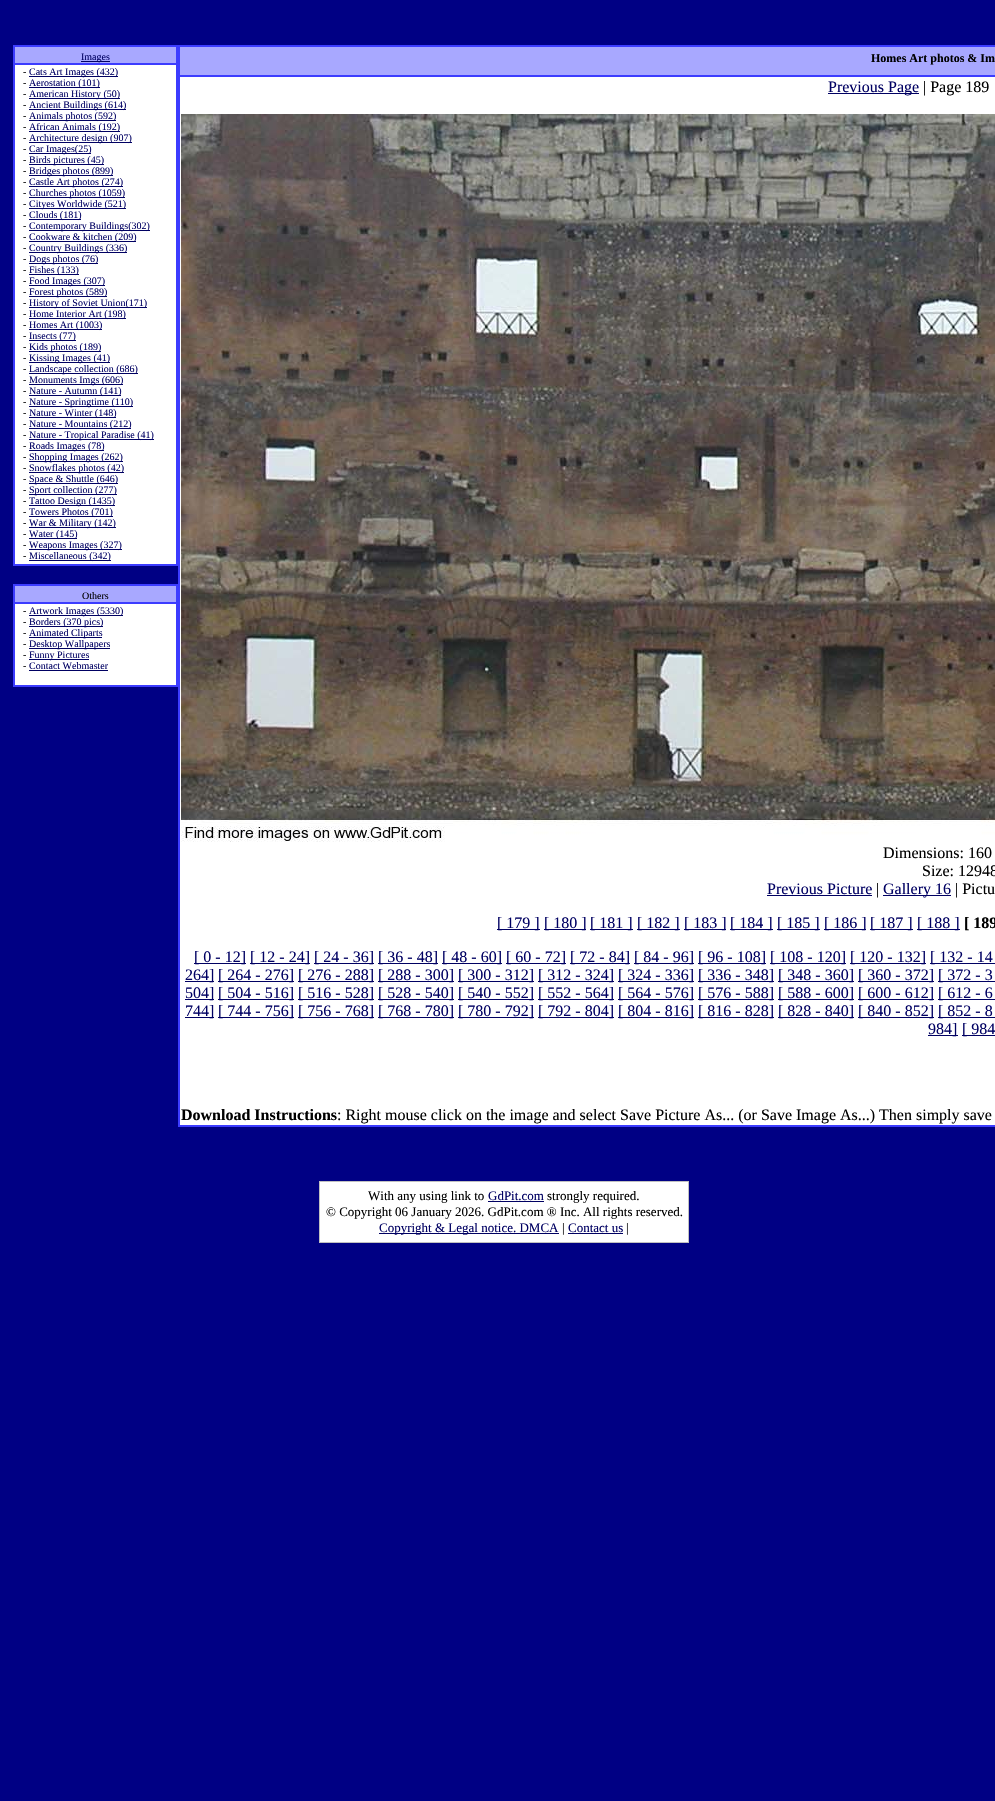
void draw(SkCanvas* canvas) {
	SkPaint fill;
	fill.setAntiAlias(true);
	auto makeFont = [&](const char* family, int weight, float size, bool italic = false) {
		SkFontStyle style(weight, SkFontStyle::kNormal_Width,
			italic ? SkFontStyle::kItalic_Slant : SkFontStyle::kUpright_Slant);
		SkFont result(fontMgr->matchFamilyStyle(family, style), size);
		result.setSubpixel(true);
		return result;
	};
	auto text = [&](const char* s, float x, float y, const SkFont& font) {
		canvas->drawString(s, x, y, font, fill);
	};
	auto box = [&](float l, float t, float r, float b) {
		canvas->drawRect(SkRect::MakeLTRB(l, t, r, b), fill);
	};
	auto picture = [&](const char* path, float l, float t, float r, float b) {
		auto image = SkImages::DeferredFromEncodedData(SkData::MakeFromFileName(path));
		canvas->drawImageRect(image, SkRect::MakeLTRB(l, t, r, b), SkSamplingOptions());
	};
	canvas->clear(0xFF000084);
	fill.setColor(0xFF3C3CFF);
	box(13, 45, 178, 566);
	fill.setColor(0xFFA8A8FF);
	box(15, 47, 176, 63);
	fill.setColor(0xFF000062);
	box(81, 61, 110, 62);
	fill.setColor(0xFFFFFFFF);
	box(15, 65, 176, 564);
	fill.setColor(0xFF000062);
	box(29, 76, 118, 77);
	box(29, 87, 100, 88);
	box(29, 98, 120, 99);
	box(29, 109, 126, 110);
	box(29, 120, 116, 121);
	box(29, 131, 120, 132);
	box(29, 142, 132, 143);
	box(29, 153, 91, 154);
	box(29, 164, 104, 165);
	box(29, 175, 113, 176);
	box(29, 186, 123, 187);
	box(29, 197, 125, 198);
	box(29, 208, 126, 209);
	box(29, 219, 81, 220);
	box(29, 230, 150, 231);
	box(29, 241, 136, 242);
	box(29, 252, 127, 253);
	box(29, 263, 98, 264);
	box(29, 274, 79, 275);
	box(29, 285, 105, 286);
	box(29, 296, 107, 297);
	box(29, 307, 147, 308);
	box(29, 318, 126, 319);
	box(29, 329, 102, 330);
	box(29, 340, 76, 341);
	box(29, 351, 101, 352);
	box(29, 362, 110, 363);
	box(29, 373, 138, 374);
	box(29, 384, 123, 385);
	box(29, 395, 121, 396);
	box(29, 406, 133, 407);
	box(29, 417, 116, 418);
	box(29, 428, 131, 429);
	box(29, 439, 154, 440);
	box(29, 450, 104, 451);
	box(29, 461, 123, 462);
	box(29, 472, 124, 473);
	box(29, 483, 118, 484);
	box(29, 494, 117, 495);
	box(29, 505, 115, 506);
	box(29, 516, 113, 517);
	box(29, 527, 116, 528);
	box(29, 538, 77, 539);
	box(29, 549, 122, 550);
	box(29, 560, 111, 561);
	fill.setColor(0xFF3C3CFF);
	box(13, 584, 178, 687);
	fill.setColor(0xFFA8A8FF);
	box(15, 586, 176, 602);
	fill.setColor(0xFFFFFFFF);
	box(15, 604, 176, 685);
	fill.setColor(0xFF000062);
	box(29, 615, 123, 616);
	box(29, 626, 103, 627);
	box(29, 637, 102, 638);
	box(29, 648, 110, 649);
	box(29, 659, 89, 660);
	box(29, 670, 108, 671);
	fill.setColor(0xFF3C3CFF);
	box(178, 45, 995, 1127);
	fill.setColor(0xFFA8A8FF);
	box(180, 47, 995, 75);
	fill.setColor(0xFFFFFFFF);
	box(180, 77, 995, 1125);
	fill.setColor(0xFF000062);
	box(828, 93, 919, 94);
	picture("image0.png", 181, 114, 995, 842);
	box(767, 895, 872, 896);
	box(883, 895, 951, 896);
	box(497, 929, 540, 930);
	box(544, 929, 586, 930);
	box(590, 929, 633, 930);
	box(637, 929, 680, 930);
	box(684, 929, 726, 930);
	box(730, 929, 773, 930);
	box(777, 929, 820, 930);
	box(824, 929, 866, 930);
	box(870, 929, 913, 930);
	box(917, 929, 960, 930);
	box(194, 963, 246, 964);
	box(250, 963, 310, 964);
	box(314, 963, 374, 964);
	box(378, 963, 438, 964);
	box(442, 963, 502, 964);
	box(506, 963, 566, 964);
	box(570, 963, 630, 964);
	box(634, 963, 694, 964);
	box(698, 963, 766, 964);
	box(770, 963, 846, 964);
	box(850, 963, 926, 964);
	box(930, 963, 995, 964);
	box(185, 981, 214, 982);
	box(218, 981, 294, 982);
	box(298, 981, 374, 982);
	box(378, 981, 454, 982);
	box(458, 981, 534, 982);
	box(538, 981, 614, 982);
	box(618, 981, 694, 982);
	box(698, 981, 774, 982);
	box(778, 981, 854, 982);
	box(858, 981, 934, 982);
	box(938, 981, 995, 982);
	box(185, 999, 214, 1000);
	box(218, 999, 294, 1000);
	box(298, 999, 374, 1000);
	box(378, 999, 454, 1000);
	box(458, 999, 534, 1000);
	box(538, 999, 614, 1000);
	box(618, 999, 694, 1000);
	box(698, 999, 774, 1000);
	box(778, 999, 854, 1000);
	box(858, 999, 934, 1000);
	box(938, 999, 995, 1000);
	box(185, 1017, 214, 1018);
	box(218, 1017, 294, 1018);
	box(298, 1017, 374, 1018);
	box(378, 1017, 454, 1018);
	box(458, 1017, 534, 1018);
	box(538, 1017, 614, 1018);
	box(618, 1017, 694, 1018);
	box(698, 1017, 774, 1018);
	box(778, 1017, 854, 1018);
	box(858, 1017, 934, 1018);
	box(938, 1017, 995, 1018);
	box(928, 1035, 958, 1036);
	box(962, 1035, 995, 1036);
	fill.setColor(0xFFC0C0C0);
	box(319, 1181, 689, 1243);
	fill.setColor(0xFFFFFFFF);
	box(320, 1182, 688, 1242);
	fill.setColor(0xFF000062);
	box(488, 1201, 544, 1202);
	box(379, 1233, 559, 1234);
	box(568, 1233, 623, 1234);
	auto font1 = makeFont("Liberation Serif", 400, 10);
	text("Images", 81, 60, font1);
	fill.setColor(0xFF000000);
	text("-", 23, 75, font1);
	fill.setColor(0xFF000062);
	text("Cats Art Images (432)", 29, 75, font1);
	fill.setColor(0xFF000000);
	text("-", 23, 86, font1);
	fill.setColor(0xFF000062);
	text("Aerostation (101)", 29, 86, font1);
	fill.setColor(0xFF000000);
	text("-", 23, 97, font1);
	fill.setColor(0xFF000062);
	text("American History (50)", 29, 97, font1);
	fill.setColor(0xFF000000);
	text("-", 23, 108, font1);
	fill.setColor(0xFF000062);
	text("Ancient Buildings (614)", 29, 108, font1);
	fill.setColor(0xFF000000);
	text("-", 23, 119, font1);
	fill.setColor(0xFF000062);
	text("Animals photos (592)", 29, 119, font1);
	fill.setColor(0xFF000000);
	text("-", 23, 130, font1);
	fill.setColor(0xFF000062);
	text("African Animals (192)", 29, 130, font1);
	fill.setColor(0xFF000000);
	text("-", 23, 141, font1);
	fill.setColor(0xFF000062);
	text("Architecture design (907)", 29, 141, font1);
	fill.setColor(0xFF000000);
	text("-", 23, 152, font1);
	fill.setColor(0xFF000062);
	text("Car Images(25)", 29, 152, font1);
	fill.setColor(0xFF000000);
	text("-", 23, 163, font1);
	fill.setColor(0xFF000062);
	text("Birds pictures (45)", 29, 163, font1);
	fill.setColor(0xFF000000);
	text("-", 23, 174, font1);
	fill.setColor(0xFF000062);
	text("Bridges photos (899)", 29, 174, font1);
	fill.setColor(0xFF000000);
	text("-", 23, 185, font1);
	fill.setColor(0xFF000062);
	text("Castle Art photos (274)", 29, 185, font1);
	fill.setColor(0xFF000000);
	text("-", 23, 196, font1);
	fill.setColor(0xFF000062);
	text("Churches photos (1059)", 29, 196, font1);
	fill.setColor(0xFF000000);
	text("-", 23, 207, font1);
	fill.setColor(0xFF000062);
	text("Cityes Worldwide (521)", 29, 207, font1);
	fill.setColor(0xFF000000);
	text("-", 23, 218, font1);
	fill.setColor(0xFF000062);
	text("Clouds (181)", 29, 218, font1);
	fill.setColor(0xFF000000);
	text("-", 23, 229, font1);
	fill.setColor(0xFF000062);
	text("Contemporary Buildings(302)", 29, 229, font1);
	fill.setColor(0xFF000000);
	text("-", 23, 240, font1);
	fill.setColor(0xFF000062);
	text("Cookware & kitchen (209)", 29, 240, font1);
	fill.setColor(0xFF000000);
	text("-", 23, 251, font1);
	fill.setColor(0xFF000062);
	text("Country Buildings (336)", 29, 251, font1);
	fill.setColor(0xFF000000);
	text("-", 23, 262, font1);
	fill.setColor(0xFF000062);
	text("Dogs photos (76)", 29, 262, font1);
	fill.setColor(0xFF000000);
	text("-", 23, 273, font1);
	fill.setColor(0xFF000062);
	text("Fishes (133)", 29, 273, font1);
	fill.setColor(0xFF000000);
	text("-", 23, 284, font1);
	fill.setColor(0xFF000062);
	text("Food Images (307)", 29, 284, font1);
	fill.setColor(0xFF000000);
	text("-", 23, 295, font1);
	fill.setColor(0xFF000062);
	text("Forest photos (589)", 29, 295, font1);
	fill.setColor(0xFF000000);
	text("-", 23, 306, font1);
	fill.setColor(0xFF000062);
	text("History of Soviet Union(171)", 29, 306, font1);
	fill.setColor(0xFF000000);
	text("-", 23, 317, font1);
	fill.setColor(0xFF000062);
	text("Home Interior Art (198)", 29, 317, font1);
	fill.setColor(0xFF000000);
	text("-", 23, 328, font1);
	fill.setColor(0xFF000062);
	text("Homes Art (1003)", 29, 328, font1);
	fill.setColor(0xFF000000);
	text("-", 23, 339, font1);
	fill.setColor(0xFF000062);
	text("Insects (77)", 29, 339, font1);
	fill.setColor(0xFF000000);
	text("-", 23, 350, font1);
	fill.setColor(0xFF000062);
	text("Kids photos (189)", 29, 350, font1);
	fill.setColor(0xFF000000);
	text("-", 23, 361, font1);
	fill.setColor(0xFF000062);
	text("Kissing Images (41)", 29, 361, font1);
	fill.setColor(0xFF000000);
	text("-", 23, 372, font1);
	fill.setColor(0xFF000062);
	text("Landscape collection (686)", 29, 372, font1);
	fill.setColor(0xFF000000);
	text("-", 23, 383, font1);
	fill.setColor(0xFF000062);
	text("Monuments Imgs (606)", 29, 383, font1);
	fill.setColor(0xFF000000);
	text("-", 23, 394, font1);
	fill.setColor(0xFF000062);
	text("Nature - Autumn (141)", 29, 394, font1);
	fill.setColor(0xFF000000);
	text("-", 23, 405, font1);
	fill.setColor(0xFF000062);
	text("Nature - Springtime (110)", 29, 405, font1);
	fill.setColor(0xFF000000);
	text("-", 23, 416, font1);
	fill.setColor(0xFF000062);
	text("Nature - Winter (148)", 29, 416, font1);
	fill.setColor(0xFF000000);
	text("-", 23, 427, font1);
	fill.setColor(0xFF000062);
	text("Nature - Mountains (212)", 29, 427, font1);
	fill.setColor(0xFF000000);
	text("-", 23, 438, font1);
	fill.setColor(0xFF000062);
	text("Nature - Tropical Paradise (41)", 29, 438, font1);
	fill.setColor(0xFF000000);
	text("-", 23, 449, font1);
	fill.setColor(0xFF000062);
	text("Roads Images (78)", 29, 449, font1);
	fill.setColor(0xFF000000);
	text("-", 23, 460, font1);
	fill.setColor(0xFF000062);
	text("Shopping Images (262)", 29, 460, font1);
	fill.setColor(0xFF000000);
	text("-", 23, 471, font1);
	fill.setColor(0xFF000062);
	text("Snowflakes photos (42)", 29, 471, font1);
	fill.setColor(0xFF000000);
	text("-", 23, 482, font1);
	fill.setColor(0xFF000062);
	text("Space & Shuttle (646)", 29, 482, font1);
	fill.setColor(0xFF000000);
	text("-", 23, 493, font1);
	fill.setColor(0xFF000062);
	text("Sport collection (277)", 29, 493, font1);
	fill.setColor(0xFF000000);
	text("-", 23, 504, font1);
	fill.setColor(0xFF000062);
	text("Tattoo Design (1435)", 29, 504, font1);
	fill.setColor(0xFF000000);
	text("-", 23, 515, font1);
	fill.setColor(0xFF000062);
	text("Towers Photos (701)", 29, 515, font1);
	fill.setColor(0xFF000000);
	text("-", 23, 526, font1);
	fill.setColor(0xFF000062);
	text("War & Military (142)", 29, 526, font1);
	fill.setColor(0xFF000000);
	text("-", 23, 537, font1);
	fill.setColor(0xFF000062);
	text("Water (145)", 29, 537, font1);
	fill.setColor(0xFF000000);
	text("-", 23, 548, font1);
	fill.setColor(0xFF000062);
	text("Weapons Images (327)", 29, 548, font1);
	fill.setColor(0xFF000000);
	text("-", 23, 559, font1);
	fill.setColor(0xFF000062);
	text("Miscellaneous (342)", 29, 559, font1);
	fill.setColor(0xFF000000);
	text("Others", 82, 599, font1);
	text("-", 23, 614, font1);
	fill.setColor(0xFF000062);
	text("Artwork Images (5330)", 29, 614, font1);
	fill.setColor(0xFF000000);
	text("-", 23, 625, font1);
	fill.setColor(0xFF000062);
	text("Borders (370 pics)", 29, 625, font1);
	fill.setColor(0xFF000000);
	text("-", 23, 636, font1);
	fill.setColor(0xFF000062);
	text("Animated Cliparts", 29, 636, font1);
	fill.setColor(0xFF000000);
	text("-", 23, 647, font1);
	fill.setColor(0xFF000062);
	text("Desktop Wallpapers", 29, 647, font1);
	fill.setColor(0xFF000000);
	text("-", 23, 658, font1);
	fill.setColor(0xFF000062);
	text("Funny Pictures", 29, 658, font1);
	fill.setColor(0xFF000000);
	text("-", 23, 669, font1);
	fill.setColor(0xFF000062);
	text("Contact Webmaster", 29, 669, font1);
	auto font2 = makeFont("Liberation Serif", 700, 12);
	fill.setColor(0xFF000000);
	text("Homes Art photos & Im", 871, 62, font2);
	auto font3 = makeFont("Liberation Serif", 400, 16);
	fill.setColor(0xFF000062);
	text("Previous Page", 828, 92, font3);
	fill.setColor(0xFF000000);
	text("| Page 189", 923, 92, font3);
	text("Dimensions: 160", 883, 858, font3);
	text("Size: 12948", 922, 876, font3);
	fill.setColor(0xFF000062);
	text("Previous Picture", 767, 894, font3);
	fill.setColor(0xFF000000);
	text("|", 876, 894, font3);
	fill.setColor(0xFF000062);
	text("Gallery 16", 883, 894, font3);
	fill.setColor(0xFF000000);
	text("| Pictu", 955, 894, font3);
	fill.setColor(0xFF000062);
	text("[ 179 ]", 497, 928, font3);
	text("[ 180 ]", 544, 928, font3);
	text("[ 181 ]", 590, 928, font3);
	text("[ 182 ]", 637, 928, font3);
	text("[ 183 ]", 684, 928, font3);
	text("[ 184 ]", 730, 928, font3);
	text("[ 185 ]", 777, 928, font3);
	text("[ 186 ]", 824, 928, font3);
	text("[ 187 ]", 870, 928, font3);
	text("[ 188 ]", 917, 928, font3);
	auto font4 = makeFont("Liberation Serif", 700, 16);
	fill.setColor(0xFF000000);
	text("[ 189", 964, 928, font4);
	fill.setColor(0xFF000062);
	text("[ 0 - 12]", 194, 962, font3);
	text("[ 12 - 24]", 250, 962, font3);
	text("[ 24 - 36]", 314, 962, font3);
	text("[ 36 - 48]", 378, 962, font3);
	text("[ 48 - 60]", 442, 962, font3);
	text("[ 60 - 72]", 506, 962, font3);
	text("[ 72 - 84]", 570, 962, font3);
	text("[ 84 - 96]", 634, 962, font3);
	text("[ 96 - 108]", 698, 962, font3);
	text("[ 108 - 120]", 770, 962, font3);
	text("[ 120 - 132]", 850, 962, font3);
	text("[ 132 - 14", 930, 962, font3);
	text("264]", 185, 980, font3);
	text("[ 264 - 276]", 218, 980, font3);
	text("[ 276 - 288]", 298, 980, font3);
	text("[ 288 - 300]", 378, 980, font3);
	text("[ 300 - 312]", 458, 980, font3);
	text("[ 312 - 324]", 538, 980, font3);
	text("[ 324 - 336]", 618, 980, font3);
	text("[ 336 - 348]", 698, 980, font3);
	text("[ 348 - 360]", 778, 980, font3);
	text("[ 360 - 372]", 858, 980, font3);
	text("[ 372 - 3", 938, 980, font3);
	text("504]", 185, 998, font3);
	text("[ 504 - 516]", 218, 998, font3);
	text("[ 516 - 528]", 298, 998, font3);
	text("[ 528 - 540]", 378, 998, font3);
	text("[ 540 - 552]", 458, 998, font3);
	text("[ 552 - 564]", 538, 998, font3);
	text("[ 564 - 576]", 618, 998, font3);
	text("[ 576 - 588]", 698, 998, font3);
	text("[ 588 - 600]", 778, 998, font3);
	text("[ 600 - 612]", 858, 998, font3);
	text("[ 612 - 6", 938, 998, font3);
	text("744]", 185, 1016, font3);
	text("[ 744 - 756]", 218, 1016, font3);
	text("[ 756 - 768]", 298, 1016, font3);
	text("[ 768 - 780]", 378, 1016, font3);
	text("[ 780 - 792]", 458, 1016, font3);
	text("[ 792 - 804]", 538, 1016, font3);
	text("[ 804 - 816]", 618, 1016, font3);
	text("[ 816 - 828]", 698, 1016, font3);
	text("[ 828 - 840]", 778, 1016, font3);
	text("[ 840 - 852]", 858, 1016, font3);
	text("[ 852 - 8", 938, 1016, font3);
	text("984]", 928, 1034, font3);
	text("[ 984", 962, 1034, font3);
	fill.setColor(0xFF000000);
	text("Download Instructions", 181, 1120, font4);
	text(": Right mouse click on the image and select Save Picture As... (or Save Image As...) Then simply save", 337, 1120, font3);
	auto font5 = makeFont("Liberation Serif", 400, 13);
	text("With any using link to", 368, 1200, font5);
	fill.setColor(0xFF000062);
	text("GdPit.com", 488, 1200, font5);
	fill.setColor(0xFF000000);
	text("strongly required.", 547, 1200, font5);
	text("© Copyright 06 January 2026. GdPit.com ® Inc. All rights reserved.", 326, 1216, font5);
	fill.setColor(0xFF000062);
	text("Copyright & Legal notice. DMCA", 379, 1232, font5);
	fill.setColor(0xFF000000);
	text("|", 562, 1232, font5);
	fill.setColor(0xFF000062);
	text("Contact us", 568, 1232, font5);
	fill.setColor(0xFF000000);
	text("|", 626, 1232, font5);
}
